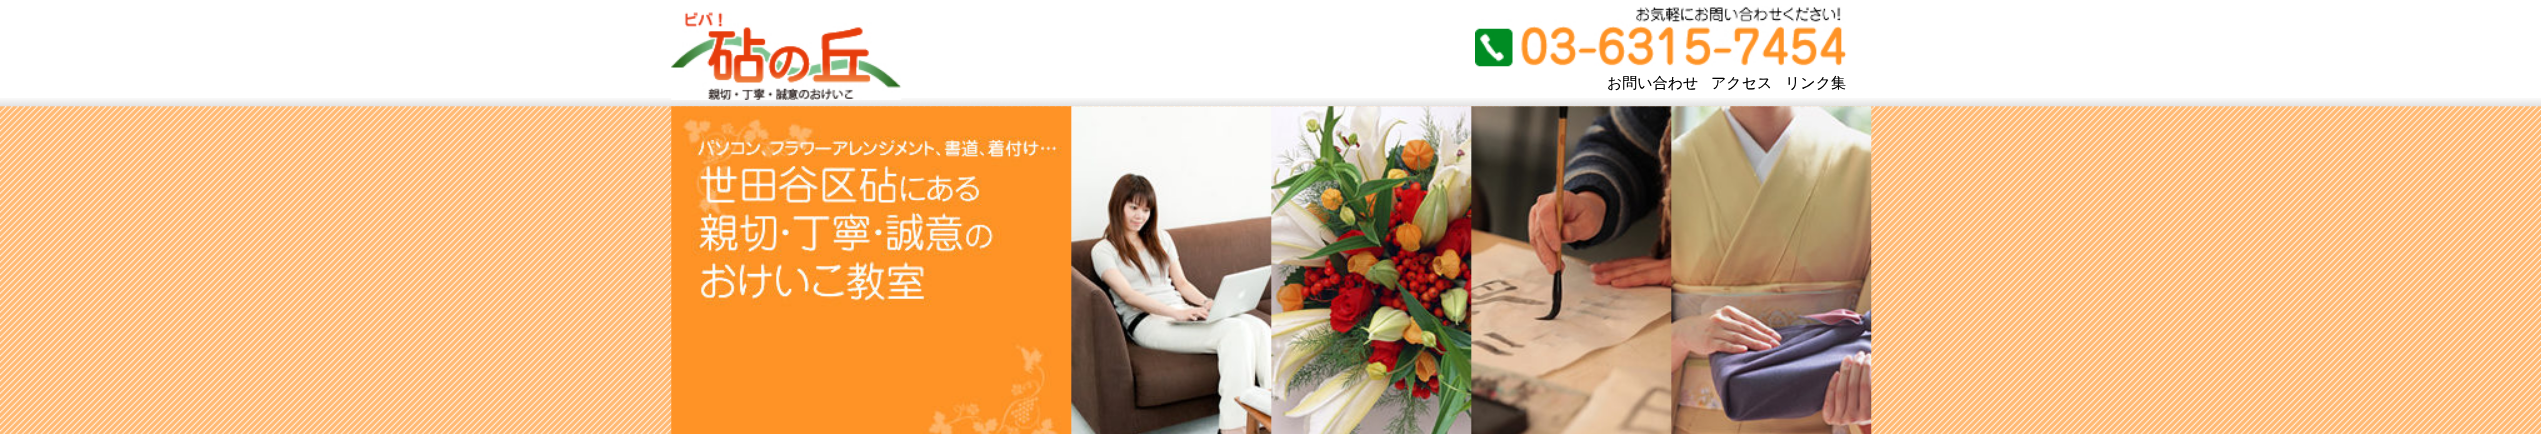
void draw(SkCanvas* canvas) {
	SkPaint fill;
	fill.setAntiAlias(true);
	auto makeFont = [&](const char* family, int weight, float size, bool italic = false) {
		SkFontStyle style(weight, SkFontStyle::kNormal_Width,
			italic ? SkFontStyle::kItalic_Slant : SkFontStyle::kUpright_Slant);
		SkFont result(fontMgr->matchFamilyStyle(family, style), size);
		result.setSubpixel(true);
		return result;
	};
	auto text = [&](const char* s, float x, float y, const SkFont& font) {
		canvas->drawString(s, x, y, font, fill);
	};
	auto picture = [&](const char* path, float l, float t, float r, float b) {
		auto image = SkImages::DeferredFromEncodedData(SkData::MakeFromFileName(path));
		canvas->drawImageRect(image, SkRect::MakeLTRB(l, t, r, b), SkSamplingOptions());
	};
	canvas->clear(0xFFFFFFFF);
	picture("image0.png", 0, 98, 2541, 434);
	picture("image1.png", 671, 12, 902, 100);
	picture("image2.png", 1475, 6, 1847, 67);
	picture("image3.png", 671, 106, 1872, 434);
	auto font1 = makeFont("WenQuanYi Zen Hei", 500, 15);
	fill.setColor(0xFF000000);
	text("お問い合わせ", 1607, 88, font1);
	text("アクセス", 1711, 88, font1);
	text("リンク集", 1785, 88, font1);
}
